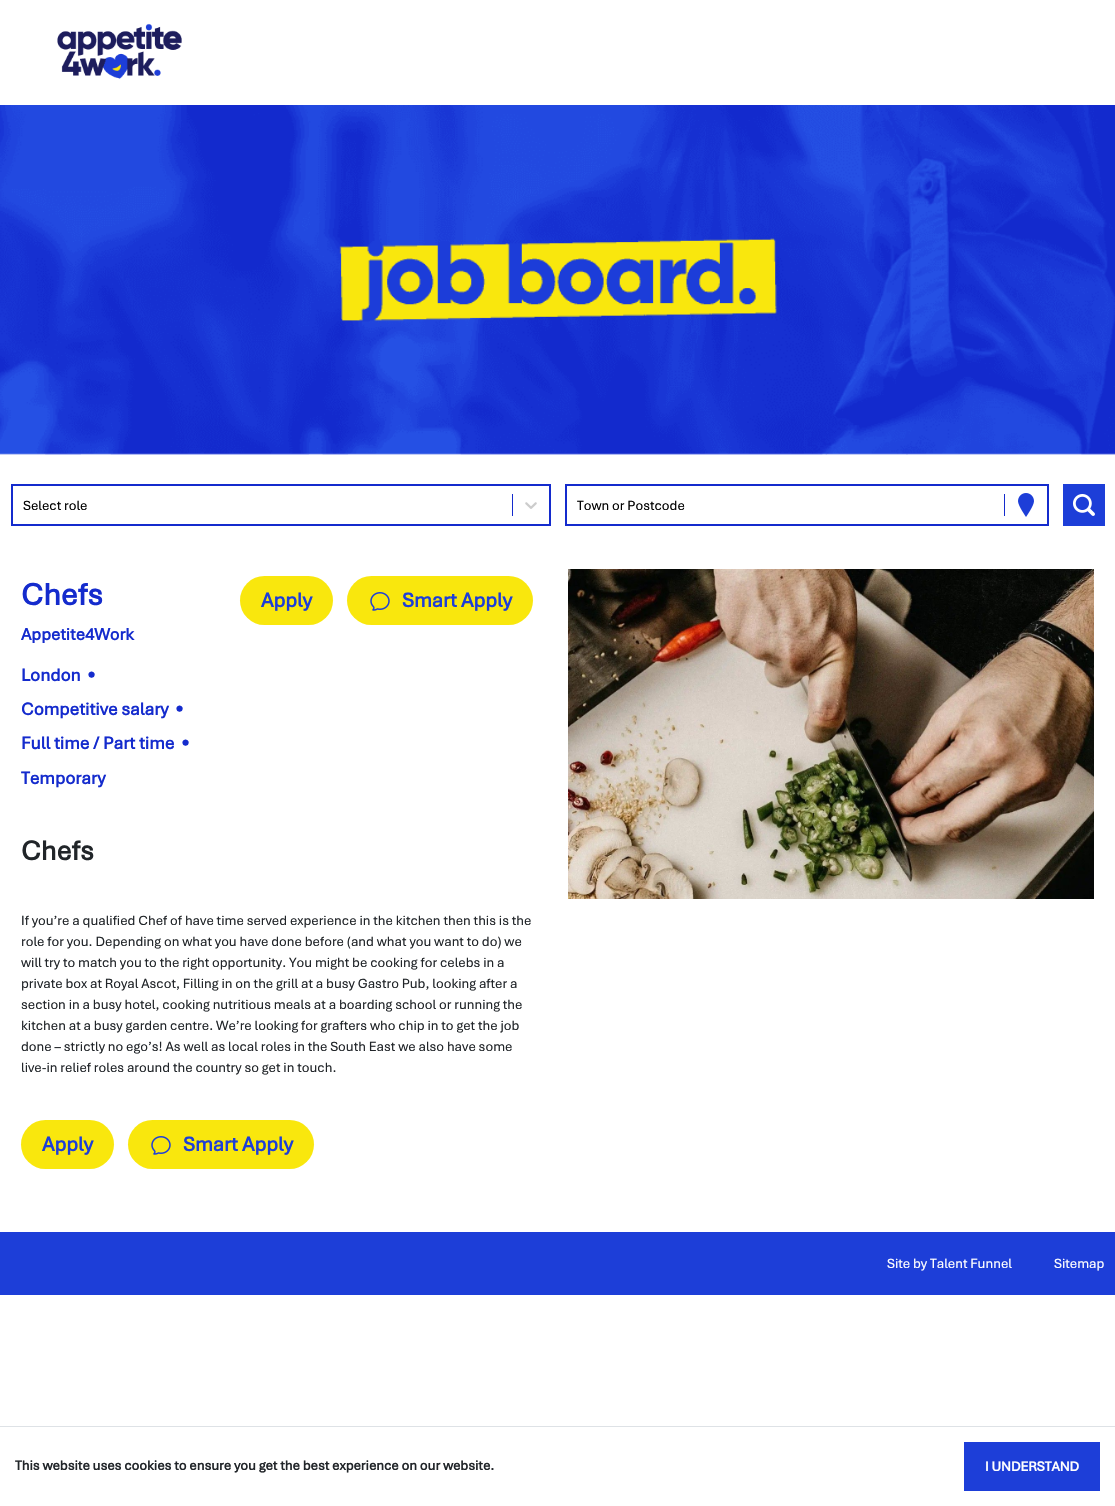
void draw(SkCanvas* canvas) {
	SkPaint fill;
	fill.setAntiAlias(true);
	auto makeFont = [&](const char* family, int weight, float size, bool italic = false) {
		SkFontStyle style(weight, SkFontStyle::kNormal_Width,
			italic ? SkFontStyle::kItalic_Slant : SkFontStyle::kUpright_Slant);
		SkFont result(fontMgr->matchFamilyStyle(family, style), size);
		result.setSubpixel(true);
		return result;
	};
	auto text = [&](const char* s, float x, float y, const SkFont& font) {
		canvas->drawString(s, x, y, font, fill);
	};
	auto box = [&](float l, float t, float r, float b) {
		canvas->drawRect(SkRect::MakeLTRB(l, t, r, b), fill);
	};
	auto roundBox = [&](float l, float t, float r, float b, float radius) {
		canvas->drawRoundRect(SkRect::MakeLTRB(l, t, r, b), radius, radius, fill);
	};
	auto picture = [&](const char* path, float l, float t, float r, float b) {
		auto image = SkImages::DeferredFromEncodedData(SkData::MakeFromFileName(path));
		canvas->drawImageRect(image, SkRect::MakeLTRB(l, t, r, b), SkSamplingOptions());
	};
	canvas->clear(0xFFFFFFFF);
	picture("image0.png", 57, 23, 182, 79);
	picture("image1.png", 0, 105, 1115, 455);
	fill.setStyle(SkPaint::kStroke_Style);
	fill.setStrokeWidth(2);
	fill.setColor(0xFF142BCD);
	canvas->drawRect(SkRect::MakeLTRB(12, 485, 550, 525), fill);
	fill.setStyle(SkPaint::kFill_Style);
	box(512, 494, 513, 516);
	picture("image2.png", 525, 502, 537, 509);
	fill.setStyle(SkPaint::kStroke_Style);
	canvas->drawRect(SkRect::MakeLTRB(566, 485, 1048, 525), fill);
	fill.setStyle(SkPaint::kFill_Style);
	box(1004, 494, 1005, 516);
	picture("image3.png", 1018, 493, 1034, 517);
	fill.setColor(0xFF1D3ED8);
	box(1063, 484, 1105, 526);
	picture("image4.png", 1073, 494, 1095, 516);
	fill.setColor(0xFFF9E70D);
	roundBox(240, 576, 333, 625, 24.5f);
	roundBox(347, 576, 533, 625, 24.5f);
	picture("image5.png", 370, 592, 390, 611);
	roundBox(21, 1120, 114, 1169, 24.5f);
	roundBox(128, 1120, 314, 1169, 24.5f);
	picture("image5.png", 151, 1136, 171, 1155);
	picture("image6.png", 568, 569, 1094, 899);
	fill.setColor(0xFF1D3ED8);
	box(0, 1232, 1115, 1295);
	fill.setColor(0xFFDEE2E6);
	box(0, 1426, 1115, 1427);
	fill.setColor(0xFF1D3ED8);
	box(964, 1442, 1100, 1491);
	auto font1 = makeFont("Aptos", 400, 14);
	fill.setColor(0xFF000000);
	text("Select role", 23, 510, font1);
	text("Town or Postcode", 577, 510, font1);
	auto font2 = makeFont("Aptos", 700, 32);
	fill.setColor(0xFF142BCD);
	text("Chefs", 21, 605, font2);
	auto font3 = makeFont("Aptos", 700, 17.5f);
	text("Appetite4Work", 21, 640, font3);
	auto font4 = makeFont("Aptos", 700, 18.25f);
	text("London", 21, 681, font4);
	text("•", 87, 681, font4);
	text("Competitive salary", 21, 715, font4);
	text("•", 175, 715, font4);
	text("Full time / Part time", 21, 749, font4);
	text("•", 181, 749, font4);
	text("Temporary", 21, 784, font4);
	auto font5 = makeFont("Aptos", 700, 21);
	fill.setColor(0xFF1D3ED8);
	text("Apply", 261, 607, font5);
	text("Smart Apply", 402, 607, font5);
	auto font6 = makeFont("Aptos", 700, 28.5f);
	fill.setColor(0xFF212529);
	text("Chefs", 21, 860, font6);
	text("If you’re a qualified Chef of have time served experience in the kitchen then this is the", 21, 925, font1);
	text("role for you. Depending on what you have done before (and what you want to do) we", 21, 946, font1);
	text("will try to match you to the right opportunity. You might be cooking for celebs in a", 21, 967, font1);
	text("private box at Royal Ascot, Filling in on the grill at a busy Gastro Pub, looking after a", 21, 988, font1);
	text("section in a busy hotel, cooking nutritious meals at a boarding school or running the", 21, 1009, font1);
	text("kitchen at a busy garden centre. We’re looking for grafters who chip in to get the job", 21, 1030, font1);
	text("done – strictly no ego’s! As well as local roles in the South East we also have some", 21, 1051, font1);
	text("live-in relief roles around the country so get in touch.", 21, 1072, font1);
	fill.setColor(0xFF1D3ED8);
	text("Apply", 42, 1151, font5);
	text("Smart Apply", 183, 1151, font5);
	fill.setColor(0xFFFFFFFF);
	text("Site by Talent Funnel", 887, 1268, font1);
	text("Sitemap", 1054, 1268, font1);
	auto font7 = makeFont("Aptos", 700, 14);
	fill.setColor(0xFF212529);
	text("This website uses cookies to ensure you get the best experience on our website.", 15, 1470, font7);
	fill.setColor(0xFFFFFFFF);
	text("I UNDERSTAND", 985, 1471, font7);
}
